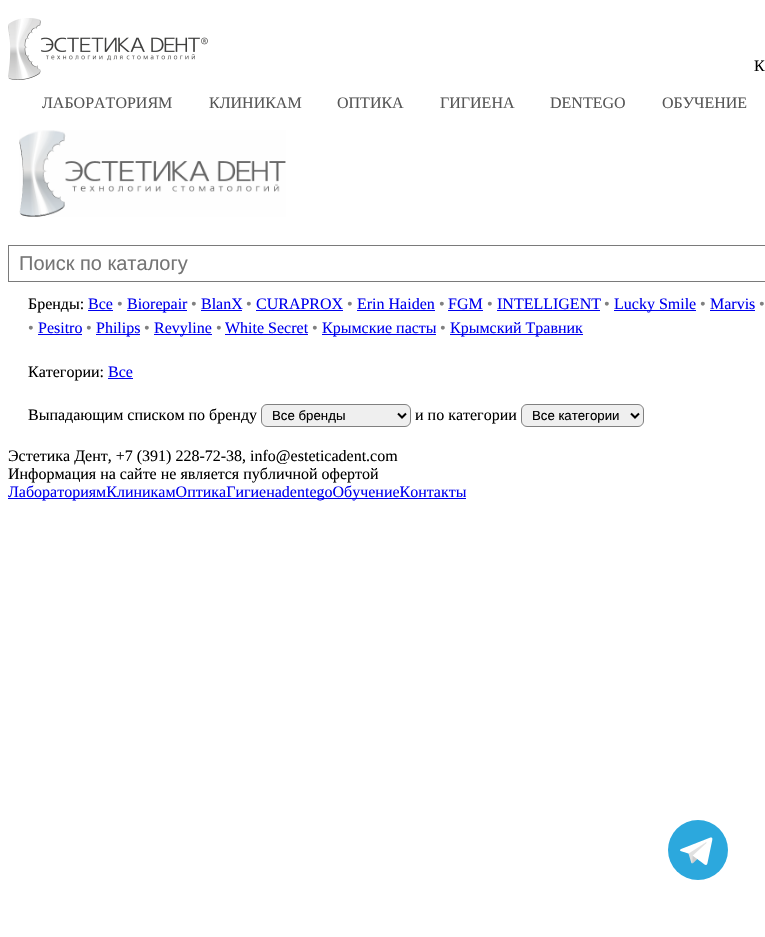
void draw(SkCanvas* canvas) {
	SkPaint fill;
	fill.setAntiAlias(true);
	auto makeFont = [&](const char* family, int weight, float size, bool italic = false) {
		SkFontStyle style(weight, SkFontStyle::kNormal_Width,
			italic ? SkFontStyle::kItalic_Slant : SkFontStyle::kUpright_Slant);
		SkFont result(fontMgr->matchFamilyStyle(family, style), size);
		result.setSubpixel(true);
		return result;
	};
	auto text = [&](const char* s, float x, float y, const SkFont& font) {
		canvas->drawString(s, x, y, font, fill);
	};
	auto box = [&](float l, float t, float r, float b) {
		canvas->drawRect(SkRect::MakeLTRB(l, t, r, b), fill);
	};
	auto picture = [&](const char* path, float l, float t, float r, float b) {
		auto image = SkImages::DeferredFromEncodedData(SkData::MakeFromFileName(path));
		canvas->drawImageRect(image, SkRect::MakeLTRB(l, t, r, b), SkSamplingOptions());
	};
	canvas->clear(0xFFFFFFFF);
	picture("image0.png", 8, 18, 208, 80);
	picture("image1.png", 19, 130, 286, 217);
	fill.setStyle(SkPaint::kStroke_Style);
	fill.setStrokeWidth(1);
	fill.setColor(0xFF7A7A7A);
	canvas->drawRect(SkRect::MakeLTRB(8.5f, 245.5f, 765.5f, 281.5f), fill);
	fill.setStyle(SkPaint::kFill_Style);
	fill.setColor(0xFF0000EE);
	box(88, 310, 113, 311);
	box(127, 310, 187, 311);
	box(201, 310, 242, 311);
	box(256, 310, 343, 311);
	box(357, 310, 435, 311);
	box(448, 310, 483, 311);
	box(497, 310, 600, 311);
	box(614, 310, 696, 311);
	box(710, 310, 755, 311);
	box(38, 334, 82, 335);
	box(96, 334, 140, 335);
	box(154, 334, 212, 335);
	box(225, 334, 308, 335);
	box(322, 334, 436, 335);
	box(450, 334, 583, 335);
	box(108, 378, 133, 379);
	fill.setColor(0xFFEFEFEF);
	canvas->drawRoundRect(SkRect::MakeLTRB(261.5f, 404.5f, 410.5f, 426.5f), 5.5f, 5.5f, fill);
	fill.setStyle(SkPaint::kStroke_Style);
	fill.setColor(0xFF808080);
	canvas->drawRoundRect(SkRect::MakeLTRB(261.5f, 404.5f, 410.5f, 426.5f), 5.5f, 5.5f, fill);
	fill.setStrokeWidth(2);
	fill.setColor(0xFF000000);
	canvas->drawPath(SkPathBuilder().moveTo(398, 413.5f).lineTo(402, 417.5f).lineTo(406, 413.5f).detach(), fill);
	fill.setStyle(SkPaint::kFill_Style);
	fill.setColor(0xFFEFEFEF);
	canvas->drawRoundRect(SkRect::MakeLTRB(521.5f, 404.5f, 643.5f, 426.5f), 5.5f, 5.5f, fill);
	fill.setStyle(SkPaint::kStroke_Style);
	fill.setStrokeWidth(1);
	fill.setColor(0xFF808080);
	canvas->drawRoundRect(SkRect::MakeLTRB(521.5f, 404.5f, 643.5f, 426.5f), 5.5f, 5.5f, fill);
	fill.setStrokeWidth(2);
	fill.setColor(0xFF000000);
	canvas->drawPath(SkPathBuilder().moveTo(631, 413.5f).lineTo(635, 417.5f).lineTo(639, 413.5f).detach(), fill);
	fill.setStyle(SkPaint::kFill_Style);
	fill.setColor(0xFF0000EE);
	box(8, 498, 466, 499);
	fill.setColor(0xFF2CA8DD);
	canvas->drawCircle(698, 850, 30, fill);
	picture("image2.png", 680, 837, 713, 865);
	auto font1 = makeFont("Liberation Serif", 400, 16);
	fill.setColor(0xFF000000);
	text("К", 754, 71, font1);
	fill.setColor(0xFF565656);
	text("ЛАБОРАТОРИЯМ", 42, 108, font1);
	text("КЛИНИКАМ", 209, 108, font1);
	text("ОПТИКА", 337, 108, font1);
	text("ГИГИЕНА", 440, 108, font1);
	text("DENTEGO", 550, 108, font1);
	text("ОБУЧЕНИЕ", 662, 108, font1);
	auto font2 = makeFont("Liberation Sans", 400, 20);
	fill.setColor(0xFF757575);
	text("Поиск по каталогу", 19, 270, font2);
	fill.setColor(0xFF000000);
	text("Бренды:", 28, 309, font1);
	fill.setColor(0xFF0000EE);
	text("Все", 88, 309, font1);
	fill.setColor(0xFF808080);
	text("•", 117, 309, font1);
	fill.setColor(0xFF0000EE);
	text("Biorepair", 127, 309, font1);
	fill.setColor(0xFF808080);
	text("•", 191, 309, font1);
	fill.setColor(0xFF0000EE);
	text("BlanX", 201, 309, font1);
	fill.setColor(0xFF808080);
	text("•", 246, 309, font1);
	fill.setColor(0xFF0000EE);
	text("CURAPROX", 256, 309, font1);
	fill.setColor(0xFF808080);
	text("•", 347, 309, font1);
	fill.setColor(0xFF0000EE);
	text("Erin Haiden", 357, 309, font1);
	fill.setColor(0xFF808080);
	text("•", 439, 309, font1);
	fill.setColor(0xFF0000EE);
	text("FGM", 448, 309, font1);
	fill.setColor(0xFF808080);
	text("•", 487, 309, font1);
	fill.setColor(0xFF0000EE);
	text("INTELLIGENT", 497, 309, font1);
	fill.setColor(0xFF808080);
	text("•", 604, 309, font1);
	fill.setColor(0xFF0000EE);
	text("Lucky Smile", 614, 309, font1);
	fill.setColor(0xFF808080);
	text("•", 700, 309, font1);
	fill.setColor(0xFF0000EE);
	text("Marvis", 710, 309, font1);
	fill.setColor(0xFF808080);
	text("•", 759, 309, font1);
	text("•", 28, 333, font1);
	fill.setColor(0xFF0000EE);
	text("Pesitro", 38, 333, font1);
	fill.setColor(0xFF808080);
	text("•", 86, 333, font1);
	fill.setColor(0xFF0000EE);
	text("Philips", 96, 333, font1);
	fill.setColor(0xFF808080);
	text("•", 144, 333, font1);
	fill.setColor(0xFF0000EE);
	text("Revyline", 154, 333, font1);
	fill.setColor(0xFF808080);
	text("•", 216, 333, font1);
	fill.setColor(0xFF0000EE);
	text("White Secret", 225, 333, font1);
	fill.setColor(0xFF808080);
	text("•", 312, 333, font1);
	fill.setColor(0xFF0000EE);
	text("Крымские пасты", 322, 333, font1);
	fill.setColor(0xFF808080);
	text("•", 440, 333, font1);
	fill.setColor(0xFF0000EE);
	text("Крымский Травник", 450, 333, font1);
	fill.setColor(0xFF000000);
	text("Категории:", 28, 377, font1);
	fill.setColor(0xFF0000EE);
	text("Все", 108, 377, font1);
	fill.setColor(0xFF000000);
	text("Выпадающим списком по бренду", 28, 420, font1);
	auto font3 = makeFont("Liberation Sans", 400, 13.25f);
	text("Все бренды", 272, 420, font3);
	text("и по категории", 415, 420, font1);
	text("Все категории", 532, 420, font3);
	text("Эстетика Дент, +7 (391) 228-72-38, info@esteticadent.com", 8, 461, font1);
	text("Информация на сайте не является публичной офертой", 8, 479, font1);
	fill.setColor(0xFF0000EE);
	text("ЛабораториямКлиникамОптикаГигиенаdentegoОбучениеКонтакты", 8, 497, font1);
}
